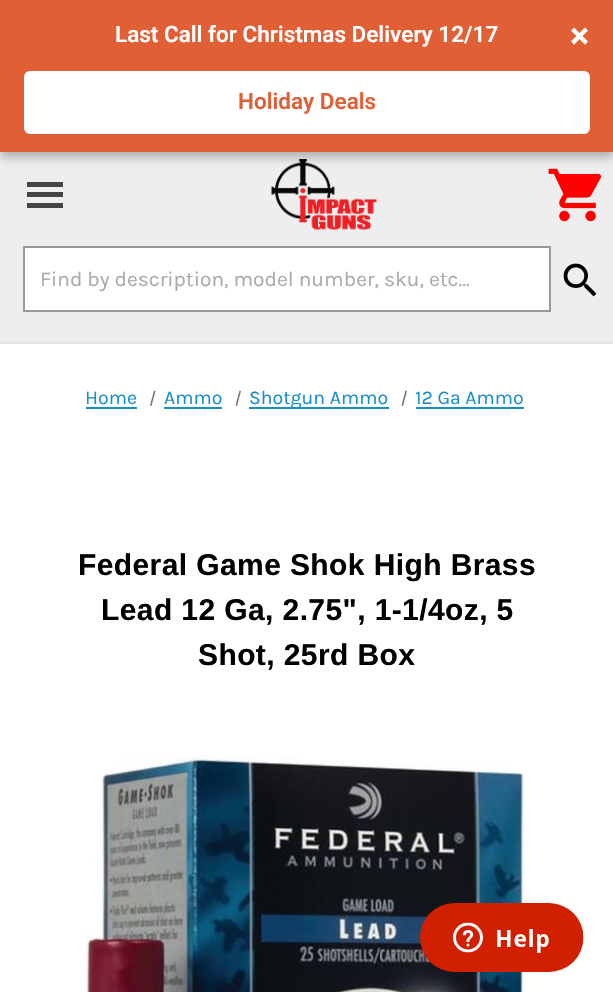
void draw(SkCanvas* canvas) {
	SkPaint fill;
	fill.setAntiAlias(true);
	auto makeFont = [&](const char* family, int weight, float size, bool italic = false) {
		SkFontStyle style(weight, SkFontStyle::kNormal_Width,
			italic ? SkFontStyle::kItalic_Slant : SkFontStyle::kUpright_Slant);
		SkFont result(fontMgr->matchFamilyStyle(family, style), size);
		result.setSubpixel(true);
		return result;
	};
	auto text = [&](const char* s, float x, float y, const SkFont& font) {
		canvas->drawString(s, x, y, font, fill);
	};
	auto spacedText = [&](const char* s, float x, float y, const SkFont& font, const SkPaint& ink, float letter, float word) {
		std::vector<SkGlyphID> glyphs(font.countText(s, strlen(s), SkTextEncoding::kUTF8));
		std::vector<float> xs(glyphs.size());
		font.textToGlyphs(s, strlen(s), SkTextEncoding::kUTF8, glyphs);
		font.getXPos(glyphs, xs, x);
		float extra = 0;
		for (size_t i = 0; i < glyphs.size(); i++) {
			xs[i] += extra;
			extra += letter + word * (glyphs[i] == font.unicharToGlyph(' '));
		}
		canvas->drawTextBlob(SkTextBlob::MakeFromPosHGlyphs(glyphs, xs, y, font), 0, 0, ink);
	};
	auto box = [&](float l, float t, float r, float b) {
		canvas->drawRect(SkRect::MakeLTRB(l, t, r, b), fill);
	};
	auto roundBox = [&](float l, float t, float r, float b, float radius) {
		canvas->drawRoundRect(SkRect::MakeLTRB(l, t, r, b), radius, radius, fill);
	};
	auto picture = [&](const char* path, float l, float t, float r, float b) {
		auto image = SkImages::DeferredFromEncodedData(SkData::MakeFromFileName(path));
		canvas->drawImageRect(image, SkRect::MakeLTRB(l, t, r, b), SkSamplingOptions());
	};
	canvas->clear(0xFFFFFFFF);
	fill.setColor(0xFFEEEEEE);
	box(0, 152, 613, 342);
	picture("image0.png", 271, 159, 377, 230);
	picture("image1.png", 548, 168, 602, 222);
	fill.setColor(0x40000000);
	fill.setMaskFilter(SkMaskFilter::MakeBlur(kNormal_SkBlurStyle, 4.5f));
	canvas->drawRect(SkRect::MakeLTRB(0, 6, 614, 158), fill);
	fill.setMaskFilter(nullptr);
	fill.setColor(0xFFE05F34);
	box(0, 0, 613, 152);
	fill.setColor(0xFFFFFFFF);
	roundBox(24, 71, 590, 134, 6);
	fill.setColor(0xFFE5E5E5);
	box(0, 342, 613, 344);
	fill.setColor(0xFF444444);
	box(27, 192, 63, 197);
	box(27, 182, 63, 187);
	box(27, 203, 63, 208);
	fill.setColor(0xFFFFFFFF);
	canvas->drawRect(SkRect::MakeLTRB(24, 247, 550, 311), fill);
	fill.setStyle(SkPaint::kStroke_Style);
	fill.setStrokeWidth(2);
	fill.setColor(0xFF999999);
	canvas->drawRect(SkRect::MakeLTRB(24, 247, 550, 311), fill);
	picture("image2.png", 563, 263, 597, 297);
	fill.setStyle(SkPaint::kFill_Style);
	fill.setColor(0xFF178DC9);
	box(86, 407, 137, 409);
	fill.setColor(0xFF757575);
	canvas->drawPath(SkPathBuilder().moveTo(154, 390.5f).lineTo(155.5f, 391).lineTo(151.5f, 406).lineTo(150, 405.5f).close().detach(), fill);
	fill.setColor(0xFF178DC9);
	box(164, 407, 222, 409);
	fill.setColor(0xFF757575);
	canvas->drawPath(SkPathBuilder().moveTo(239.5f, 390.5f).lineTo(241, 391).lineTo(237, 406).lineTo(235.5f, 405.5f).close().detach(), fill);
	fill.setColor(0xFF178DC9);
	box(249, 407, 389, 409);
	fill.setColor(0xFF757575);
	canvas->drawPath(SkPathBuilder().moveTo(405.5f, 390.5f).lineTo(407, 391).lineTo(403, 406).lineTo(401.5f, 405.5f).close().detach(), fill);
	fill.setColor(0xFF178DC9);
	box(416, 407, 524, 409);
	picture("image3.png", 85, 756, 525, 992);
	picture("image4.png", 420, 903, 584, 972);
	auto font1 = makeFont("Roboto", 600, 22.5f);
	fill.setColor(0xFFFFFFFF);
	text("Last Call for Christmas Delivery 12/17", 115, 42, font1);
	fill.setColor(0xFFE05F34);
	text("Holiday Deals", 238, 109, font1);
	auto font2 = makeFont("Roboto", 700, 36);
	fill.setColor(0xFFFFFFFF);
	text("×", 570, 48, font2);
	auto font3 = makeFont("Karla", 400, 21);
	fill.setColor(0xFFAAAAAA);
	text("Find by description, model number, sku, etc...", 40, 286, font3);
	auto font4 = makeFont("Karla", 400, 19.5f);
	fill.setColor(0xFF178DC9);
	text("Home", 85, 404, font4);
	text("Ammo", 164, 404, font4);
	text("Shotgun Ammo", 249, 404, font4);
	text("12 Ga Ammo", 415, 404, font4);
	auto font5 = makeFont("Liberation Sans", 700, 30);
	fill.setColor(0xFF000000);
	spacedText("Federal Game Shok High Brass", 78, 575, font5, fill, 0.4f, 0);
	spacedText("Lead 12 Ga, 2.75\", 1-1/4oz, 5", 101, 620, font5, fill, 0.4f, 0);
	spacedText("Shot, 25rd Box", 198, 665, font5, fill, 0.4f, 0);
}
